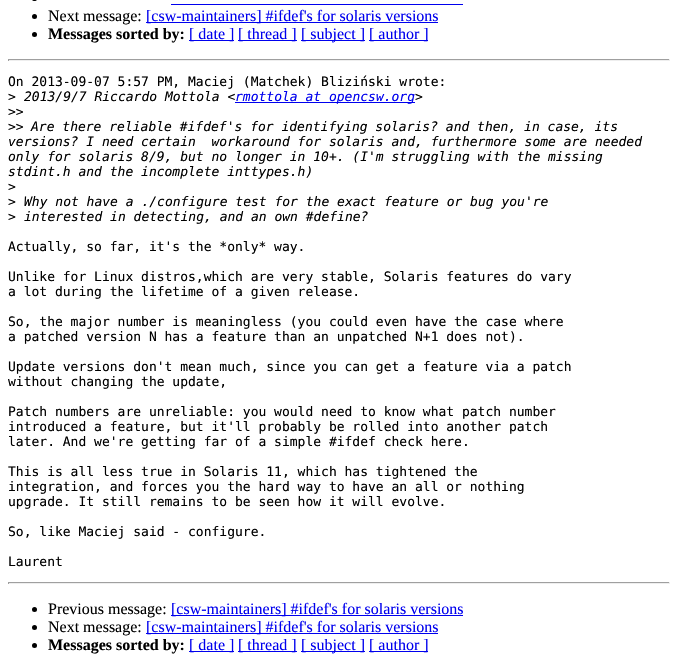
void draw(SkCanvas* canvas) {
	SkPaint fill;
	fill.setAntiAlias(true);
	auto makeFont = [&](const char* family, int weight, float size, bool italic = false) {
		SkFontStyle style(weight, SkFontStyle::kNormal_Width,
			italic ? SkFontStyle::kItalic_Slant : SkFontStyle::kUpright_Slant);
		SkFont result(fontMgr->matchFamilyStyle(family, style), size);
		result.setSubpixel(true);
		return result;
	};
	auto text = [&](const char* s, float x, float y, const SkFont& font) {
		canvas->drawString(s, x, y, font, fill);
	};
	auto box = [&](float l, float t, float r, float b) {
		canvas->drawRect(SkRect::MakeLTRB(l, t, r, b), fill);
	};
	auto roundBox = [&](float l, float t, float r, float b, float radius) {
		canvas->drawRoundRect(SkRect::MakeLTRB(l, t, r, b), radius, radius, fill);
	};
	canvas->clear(0xFFFFFFFF);
	fill.setColor(0xFF000000);
	roundBox(32, -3, 37, 1, 2.5f);
	fill.setColor(0xFF0000EE);
	box(171, 4, 463, 5);
	fill.setColor(0xFF000000);
	canvas->drawCircle(34.5f, 16.5f, 2.5f, fill);
	fill.setColor(0xFF0000EE);
	box(146, 22, 438, 23);
	fill.setColor(0xFF000000);
	canvas->drawCircle(34.5f, 34.5f, 2.5f, fill);
	fill.setColor(0xFF0000EE);
	box(189, 40, 234, 41);
	box(238, 40, 297, 41);
	box(301, 40, 365, 41);
	box(369, 40, 428, 41);
	fill.setColor(0xFF9F9F9F);
	box(8, 59, 670, 60);
	fill.setColor(0xFFEEEEEE);
	box(669, 59, 670, 61);
	box(8, 60, 670, 61);
	fill.setColor(0xFF9F9F9F);
	box(8, 59, 9, 61);
	fill.setColor(0xFF0000EE);
	box(235, 102, 415, 103);
	fill.setColor(0xFF9F9F9F);
	box(8, 582, 670, 583);
	fill.setColor(0xFFEEEEEE);
	box(669, 582, 670, 584);
	box(8, 583, 670, 584);
	fill.setColor(0xFF9F9F9F);
	box(8, 582, 9, 584);
	fill.setColor(0xFF000000);
	canvas->drawCircle(34.5f, 609.5f, 2.5f, fill);
	fill.setColor(0xFF0000EE);
	box(171, 615, 463, 616);
	fill.setColor(0xFF000000);
	canvas->drawCircle(34.5f, 627.5f, 2.5f, fill);
	fill.setColor(0xFF0000EE);
	box(146, 633, 438, 634);
	fill.setColor(0xFF000000);
	canvas->drawCircle(34.5f, 645.5f, 2.5f, fill);
	fill.setColor(0xFF0000EE);
	box(189, 651, 234, 652);
	box(238, 651, 297, 652);
	box(301, 651, 365, 652);
	box(369, 651, 428, 652);
	auto font1 = makeFont("Liberation Serif", 400, 16);
	fill.setColor(0xFF000000);
	text("Next message:", 48, 21, font1);
	fill.setColor(0xFF0000EE);
	text("[csw-maintainers] #ifdef's for solaris versions", 146, 21, font1);
	auto font2 = makeFont("Liberation Serif", 700, 16);
	fill.setColor(0xFF000000);
	text("Messages sorted by:", 48, 39, font2);
	fill.setColor(0xFF0000EE);
	text("[ date ]", 189, 39, font1);
	text("[ thread ]", 238, 39, font1);
	text("[ subject ]", 301, 39, font1);
	text("[ author ]", 369, 39, font1);
	auto font3 = makeFont("DejaVu Sans Mono", 400, 13);
	fill.setColor(0xFF000000);
	text("On 2013-09-07 5:57 PM, Maciej (Matchek) Bliziński wrote:", 8, 86, font3);
	text(">", 8, 101, font3);
	auto font4 = makeFont("DejaVu Sans Mono", 400, 13, true);
	text("2013/9/7 Riccardo Mottola <", 24, 101, font4);
	fill.setColor(0xFF0000EE);
	text("rmottola at opencsw.org", 235, 101, font4);
	fill.setColor(0xFF000000);
	text(">", 415, 101, font4);
	text(">>", 8, 116, font3);
	text(">>", 8, 131, font3);
	text("Are there reliable #ifdef's for identifying solaris? and then, in case, its", 31, 131, font4);
	text("versions? I need certain  workaround for solaris and, furthermore some are needed", 8, 146, font4);
	text("only for solaris 8/9, but no longer in 10+. (I'm struggling with the missing", 8, 161, font4);
	text("stdint.h and the incomplete inttypes.h)", 8, 176, font4);
	text(">", 8, 191, font3);
	text(">", 8, 206, font3);
	text("Why not have a ./configure test for the exact feature or bug you're", 24, 206, font4);
	text(">", 8, 221, font3);
	text("interested in detecting, and an own #define?", 24, 221, font4);
	text("Actually, so far, it's the *only* way.", 8, 251, font3);
	text("Unlike for Linux distros,which are very stable, Solaris features do vary", 8, 281, font3);
	text("a lot during the lifetime of a given release.", 8, 296, font3);
	text("So, the major number is meaningless (you could even have the case where", 8, 326, font3);
	text("a patched version N has a feature than an unpatched N+1 does not).", 8, 341, font3);
	text("Update versions don't mean much, since you can get a feature via a patch", 8, 371, font3);
	text("without changing the update,", 8, 386, font3);
	text("Patch numbers are unreliable: you would need to know what patch number", 8, 416, font3);
	text("introduced a feature, but it'll probably be rolled into another patch", 8, 431, font3);
	text("later. And we're getting far of a simple #ifdef check here.", 8, 446, font3);
	text("This is all less true in Solaris 11, which has tightened the", 8, 476, font3);
	text("integration, and forces you the hard way to have an all or nothing", 8, 491, font3);
	text("upgrade. It still remains to be seen how it will evolve.", 8, 506, font3);
	text("So, like Maciej said - configure.", 8, 536, font3);
	text("Laurent", 8, 566, font3);
	text("Previous message:", 48, 614, font1);
	fill.setColor(0xFF0000EE);
	text("[csw-maintainers] #ifdef's for solaris versions", 171, 614, font1);
	fill.setColor(0xFF000000);
	text("Next message:", 48, 632, font1);
	fill.setColor(0xFF0000EE);
	text("[csw-maintainers] #ifdef's for solaris versions", 146, 632, font1);
	fill.setColor(0xFF000000);
	text("Messages sorted by:", 48, 650, font2);
	fill.setColor(0xFF0000EE);
	text("[ date ]", 189, 650, font1);
	text("[ thread ]", 238, 650, font1);
	text("[ subject ]", 301, 650, font1);
	text("[ author ]", 369, 650, font1);
}
